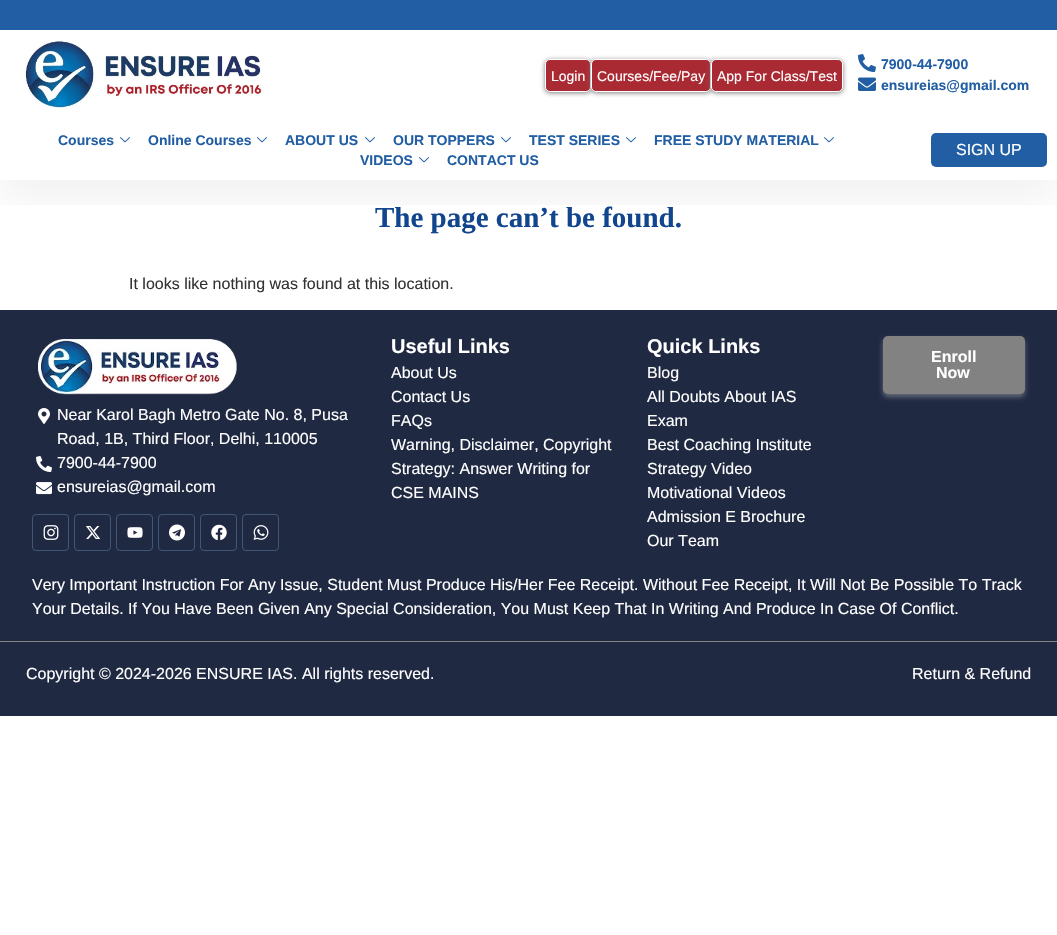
void draw(SkCanvas* canvas) {
	SkPaint fill;
	fill.setAntiAlias(true);
	auto makeFont = [&](const char* family, int weight, float size, bool italic = false) {
		SkFontStyle style(weight, SkFontStyle::kNormal_Width,
			italic ? SkFontStyle::kItalic_Slant : SkFontStyle::kUpright_Slant);
		SkFont result(fontMgr->matchFamilyStyle(family, style), size);
		result.setSubpixel(true);
		return result;
	};
	auto text = [&](const char* s, float x, float y, const SkFont& font) {
		canvas->drawString(s, x, y, font, fill);
	};
	auto box = [&](float l, float t, float r, float b) {
		canvas->drawRect(SkRect::MakeLTRB(l, t, r, b), fill);
	};
	auto roundBox = [&](float l, float t, float r, float b, float radius) {
		canvas->drawRoundRect(SkRect::MakeLTRB(l, t, r, b), radius, radius, fill);
	};
	auto picture = [&](const char* path, float l, float t, float r, float b) {
		auto image = SkImages::DeferredFromEncodedData(SkData::MakeFromFileName(path));
		canvas->drawImageRect(image, SkRect::MakeLTRB(l, t, r, b), SkSamplingOptions());
	};
	canvas->clear(0xFFFFFFFF);
	fill.setColor(0xFF215EA4);
	box(0, 0, 1057, 30);
	picture("image0.png", 25, 40, 262, 110);
	fill.setColor(0xE66F6F6F);
	fill.setMaskFilter(SkMaskFilter::MakeBlur(kNormal_SkBlurStyle, 2.5f));
	canvas->drawRoundRect(SkRect::MakeLTRB(545, 60, 591, 93), 5, 5, fill);
	fill.setMaskFilter(nullptr);
	fill.setColor(0xFFAA2A34);
	canvas->drawRoundRect(SkRect::MakeLTRB(545.5f, 59.5f, 590.5f, 91.5f), 4.5f, 4.5f, fill);
	fill.setStyle(SkPaint::kStroke_Style);
	fill.setStrokeWidth(1);
	fill.setColor(0xFFFFFFFF);
	canvas->drawRoundRect(SkRect::MakeLTRB(545.5f, 59.5f, 590.5f, 91.5f), 4.5f, 4.5f, fill);
	fill.setStyle(SkPaint::kFill_Style);
	fill.setColor(0xE66F6F6F);
	fill.setMaskFilter(SkMaskFilter::MakeBlur(kNormal_SkBlurStyle, 2.5f));
	canvas->drawRoundRect(SkRect::MakeLTRB(591, 60, 711, 93), 5, 5, fill);
	fill.setMaskFilter(nullptr);
	fill.setColor(0xFFAA2A34);
	canvas->drawRoundRect(SkRect::MakeLTRB(591.5f, 59.5f, 710.5f, 91.5f), 4.5f, 4.5f, fill);
	fill.setStyle(SkPaint::kStroke_Style);
	fill.setColor(0xFFFFFFFF);
	canvas->drawRoundRect(SkRect::MakeLTRB(591.5f, 59.5f, 710.5f, 91.5f), 4.5f, 4.5f, fill);
	fill.setStyle(SkPaint::kFill_Style);
	fill.setColor(0xE66F6F6F);
	fill.setMaskFilter(SkMaskFilter::MakeBlur(kNormal_SkBlurStyle, 2.5f));
	canvas->drawRoundRect(SkRect::MakeLTRB(711, 60, 843, 93), 5, 5, fill);
	fill.setMaskFilter(nullptr);
	fill.setColor(0xFFAA2A34);
	canvas->drawRoundRect(SkRect::MakeLTRB(711.5f, 59.5f, 842.5f, 91.5f), 4.5f, 4.5f, fill);
	fill.setStyle(SkPaint::kStroke_Style);
	fill.setColor(0xFFFFFFFF);
	canvas->drawRoundRect(SkRect::MakeLTRB(711.5f, 59.5f, 842.5f, 91.5f), 4.5f, 4.5f, fill);
	picture("image1.png", 858, 54, 876, 72);
	picture("image2.png", 858, 77, 876, 91);
	canvas->save();
	canvas->clipRect(SkRect::MakeLTRB(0, 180, 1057, 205));
	fill.setStyle(SkPaint::kFill_Style);
	fill.setColor(0x0D000000);
	fill.setMaskFilter(SkMaskFilter::MakeBlur(kNormal_SkBlurStyle, 20));
	canvas->drawRect(SkRect::MakeLTRB(0, 140, 1057, 200), fill);
	fill.setMaskFilter(nullptr);
	canvas->restore();
	picture("image3.png", 120, 137, 130, 143);
	picture("image3.png", 257, 137, 267, 143);
	picture("image3.png", 365, 137, 375, 143);
	picture("image3.png", 501, 137, 511, 143);
	picture("image3.png", 626, 137, 636, 143);
	picture("image3.png", 824, 137, 834, 143);
	picture("image3.png", 419, 157, 429, 163);
	fill.setColor(0xFF215EA4);
	roundBox(931, 133, 1047, 167, 5);
	fill.setColor(0xFF202942);
	box(0, 310, 1057, 641);
	fill.setColor(0x4DFFFFFF);
	fill.setMaskFilter(SkMaskFilter::MakeBlur(kNormal_SkBlurStyle, 2.5f));
	canvas->drawRoundRect(SkRect::MakeLTRB(883, 339, 1025, 397), 5, 5, fill);
	fill.setMaskFilter(nullptr);
	fill.setColor(0xFF828282);
	roundBox(883, 336, 1025, 394, 5);
	picture("image4.png", 38, 339, 237, 395);
	picture("image5.png", 38, 408, 50, 424);
	picture("image6.png", 36, 456, 52, 472);
	picture("image7.png", 36, 482, 52, 495);
	fill.setStyle(SkPaint::kStroke_Style);
	fill.setColor(0xFF415674);
	canvas->drawRoundRect(SkRect::MakeLTRB(32.5f, 514.5f, 68.5f, 550.5f), 3.5f, 3.5f, fill);
	picture("image8.png", 43, 525, 59, 540);
	canvas->drawRoundRect(SkRect::MakeLTRB(74.5f, 514.5f, 110.5f, 550.5f), 3.5f, 3.5f, fill);
	picture("image9.png", 86, 526, 101, 539);
	canvas->drawRoundRect(SkRect::MakeLTRB(116.5f, 514.5f, 152.5f, 550.5f), 3.5f, 3.5f, fill);
	picture("image10.png", 127, 527, 143, 538);
	canvas->drawRoundRect(SkRect::MakeLTRB(158.5f, 514.5f, 194.5f, 550.5f), 3.5f, 3.5f, fill);
	picture("image11.png", 169, 524, 185, 541);
	canvas->drawRoundRect(SkRect::MakeLTRB(200.5f, 514.5f, 236.5f, 550.5f), 3.5f, 3.5f, fill);
	picture("image12.png", 211, 524, 227, 541);
	canvas->drawRoundRect(SkRect::MakeLTRB(242.5f, 514.5f, 278.5f, 550.5f), 3.5f, 3.5f, fill);
	picture("image13.png", 253, 525, 269, 540);
	fill.setStyle(SkPaint::kFill_Style);
	fill.setColor(0xFF202942);
	box(0, 642, 1057, 716);
	fill.setColor(0xFF848484);
	box(0, 641, 1057, 642);
	auto font1 = makeFont("Liberation Sans", 400, 14);
	fill.setColor(0xFFFFFFFF);
	text("Login", 551, 81, font1);
	text("Courses/Fee/Pay", 597, 81, font1);
	text("App For Class/Test", 717, 81, font1);
	auto font2 = makeFont("Liberation Sans", 700, 14);
	fill.setColor(0xFF215EA4);
	text("7900-44-7900", 881, 69, font2);
	text("ensureias@gmail.com", 881, 90, font2);
	text("Courses", 58, 145, font2);
	text("Online Courses", 148, 145, font2);
	text("ABOUT US", 285, 145, font2);
	text("OUR TOPPERS", 393, 145, font2);
	text("TEST SERIES", 529, 145, font2);
	text("FREE STUDY MATERIAL", 654, 145, font2);
	text("VIDEOS", 360, 165, font2);
	text("CONTACT US", 447, 165, font2);
	auto font3 = makeFont("Liberation Sans", 400, 16);
	fill.setColor(0xFFFFFFFF);
	text("SIGN UP", 956, 155, font3);
	auto font4 = makeFont("Liberation Serif", 700, 29);
	fill.setColor(0xFF11468F);
	text("The page can’t be found.", 375, 227, font4);
	fill.setColor(0xFF333333);
	text("It looks like nothing was found at this location.", 129, 289, font3);
	auto font5 = makeFont("Liberation Sans", 700, 20);
	fill.setColor(0xFFFFFFFF);
	text("Useful Links", 391, 353, font5);
	text("About Us", 391, 378, font3);
	text("Contact Us", 391, 402, font3);
	text("FAQs", 391, 426, font3);
	text("Warning, Disclaimer, Copyright", 391, 450, font3);
	text("Strategy: Answer Writing for", 391, 474, font3);
	text("CSE MAINS", 391, 498, font3);
	text("Quick Links", 647, 353, font5);
	text("Blog", 647, 378, font3);
	text("All Doubts About IAS", 647, 402, font3);
	text("Exam", 647, 426, font3);
	text("Best Coaching Institute", 647, 450, font3);
	text("Strategy Video", 647, 474, font3);
	text("Motivational Videos", 647, 498, font3);
	text("Admission E Brochure", 647, 522, font3);
	text("Our Team", 647, 546, font3);
	auto font6 = makeFont("Liberation Sans", 700, 16);
	text("Enroll", 931, 362, font6);
	text("Now", 936, 378, font6);
	text("Near Karol Bagh Metro Gate No. 8, Pusa", 57, 420, font3);
	text("Road, 1B, Third Floor, Delhi, 110005", 57, 444, font3);
	text("7900-44-7900", 57, 468, font3);
	text("ensureias@gmail.com", 57, 492, font3);
	text("Very Important Instruction For Any Issue, Student Must Produce His/Her Fee Receipt. Without Fee Receipt, It Will Not Be Possible To Track", 32, 590, font3);
	text("Your Details. If You Have Been Given Any Special Consideration, You Must Keep That In Writing And Produce In Case Of Conflict.", 32, 614, font3);
	text("Copyright © 2024-2026 ENSURE IAS. All rights reserved.", 26, 679, font3);
	text("Return & Refund", 912, 679, font3);
}
